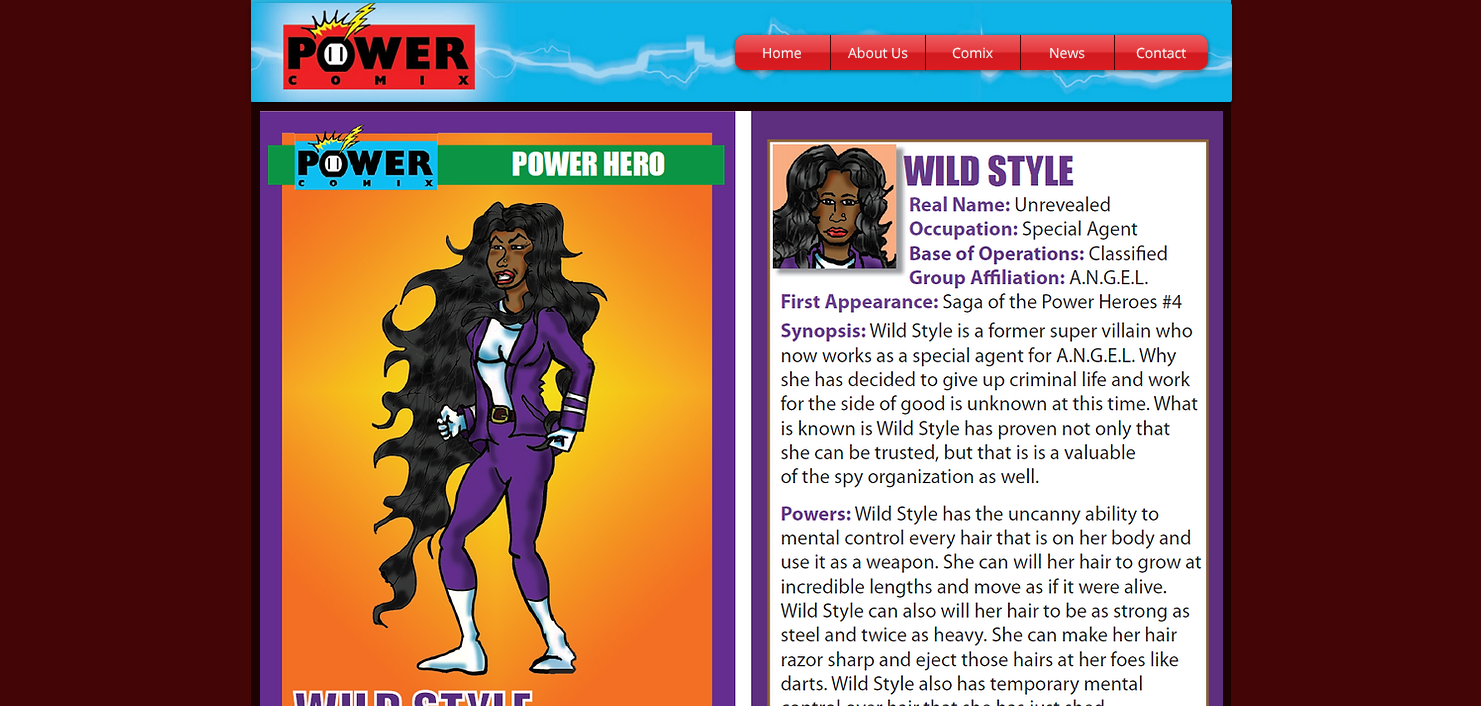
void draw(SkCanvas* canvas) {
	SkPaint fill;
	fill.setAntiAlias(true);
	auto makeFont = [&](const char* family, int weight, float size, bool italic = false) {
		SkFontStyle style(weight, SkFontStyle::kNormal_Width,
			italic ? SkFontStyle::kItalic_Slant : SkFontStyle::kUpright_Slant);
		SkFont result(fontMgr->matchFamilyStyle(family, style), size);
		result.setSubpixel(true);
		return result;
	};
	auto text = [&](const char* s, float x, float y, const SkFont& font) {
		canvas->drawString(s, x, y, font, fill);
	};
	auto box = [&](float l, float t, float r, float b) {
		canvas->drawRect(SkRect::MakeLTRB(l, t, r, b), fill);
	};
	auto picture = [&](const char* path, float l, float t, float r, float b) {
		auto image = SkImages::DeferredFromEncodedData(SkData::MakeFromFileName(path));
		canvas->drawImageRect(image, SkRect::MakeLTRB(l, t, r, b), SkSamplingOptions());
	};
	canvas->clear(0xFF440506);
	fill.setColor(0xFF29B8E3);
	box(251, 0, 1231, 102);
	fill.setColor(0x87000000);
	fill.setMaskFilter(SkMaskFilter::MakeBlur(kNormal_SkBlurStyle, 2.5f));
	canvas->drawRoundRect(SkRect::MakeLTRB(251, 5, 1232, 104), 2, 2, fill);
	fill.setMaskFilter(nullptr);
	picture("image0.png", 251, 3, 1232, 102);
	fill.setColor(0x99000000);
	fill.setMaskFilter(SkMaskFilter::MakeBlur(kNormal_SkBlurStyle, 2));
	canvas->drawRoundRect(SkRect::MakeLTRB(735, 36, 1208, 71), 10, 10, fill);
	fill.setMaskFilter(nullptr);
	picture("image1.png", 735, 35, 1208, 70);
	fill.setColor(0xFFE21C21);
	canvas->drawPath(SkPathBuilder().moveTo(745, 35).lineTo(830, 35).lineTo(830, 70).lineTo(745, 70).cubicTo(739.5f, 70, 735, 65.5f, 735, 60).lineTo(735, 45).cubicTo(735, 39.5f, 739.5f, 35, 745, 35).close().detach(), fill);
	box(831, 35, 925, 70);
	fill.setColor(0xFF440506);
	box(830, 35, 831, 70);
	fill.setColor(0xFFE21C21);
	box(926, 35, 1020, 70);
	fill.setColor(0xFF440506);
	box(925, 35, 926, 70);
	fill.setColor(0xFFE21C21);
	box(1021, 35, 1114, 70);
	fill.setColor(0xFF440506);
	box(1020, 35, 1021, 70);
	fill.setColor(0xFFE21C21);
	canvas->drawPath(SkPathBuilder().moveTo(1114, 35).lineTo(1198, 35).cubicTo(1203.5f, 35, 1208, 39.5f, 1208, 45).lineTo(1208, 60).cubicTo(1208, 65.5f, 1203.5f, 70, 1198, 70).lineTo(1114, 70).close().detach(), fill);
	fill.setColor(0xFF440506);
	box(1114, 35, 1115, 70);
	fill.setColor(0x99000000);
	box(251, 102, 1231, 706);
	picture("image7.png", 260, 111, 1223, 706);
	auto font1 = makeFont("Open Sans", 400, 14);
	fill.setColor(0xFFFFFFFF);
	text("Home", 762, 58, font1);
	picture("image2.png", 735, 35, 830, 70);
	text("About Us", 848, 58, font1);
	picture("image3.png", 831, 35, 925, 70);
	text("Comix", 952, 58, font1);
	picture("image4.png", 926, 35, 1020, 70);
	text("News", 1049, 58, font1);
	picture("image5.png", 1021, 35, 1114, 70);
	text("Contact", 1136, 58, font1);
	picture("image6.png", 1115, 35, 1208, 70);
}
